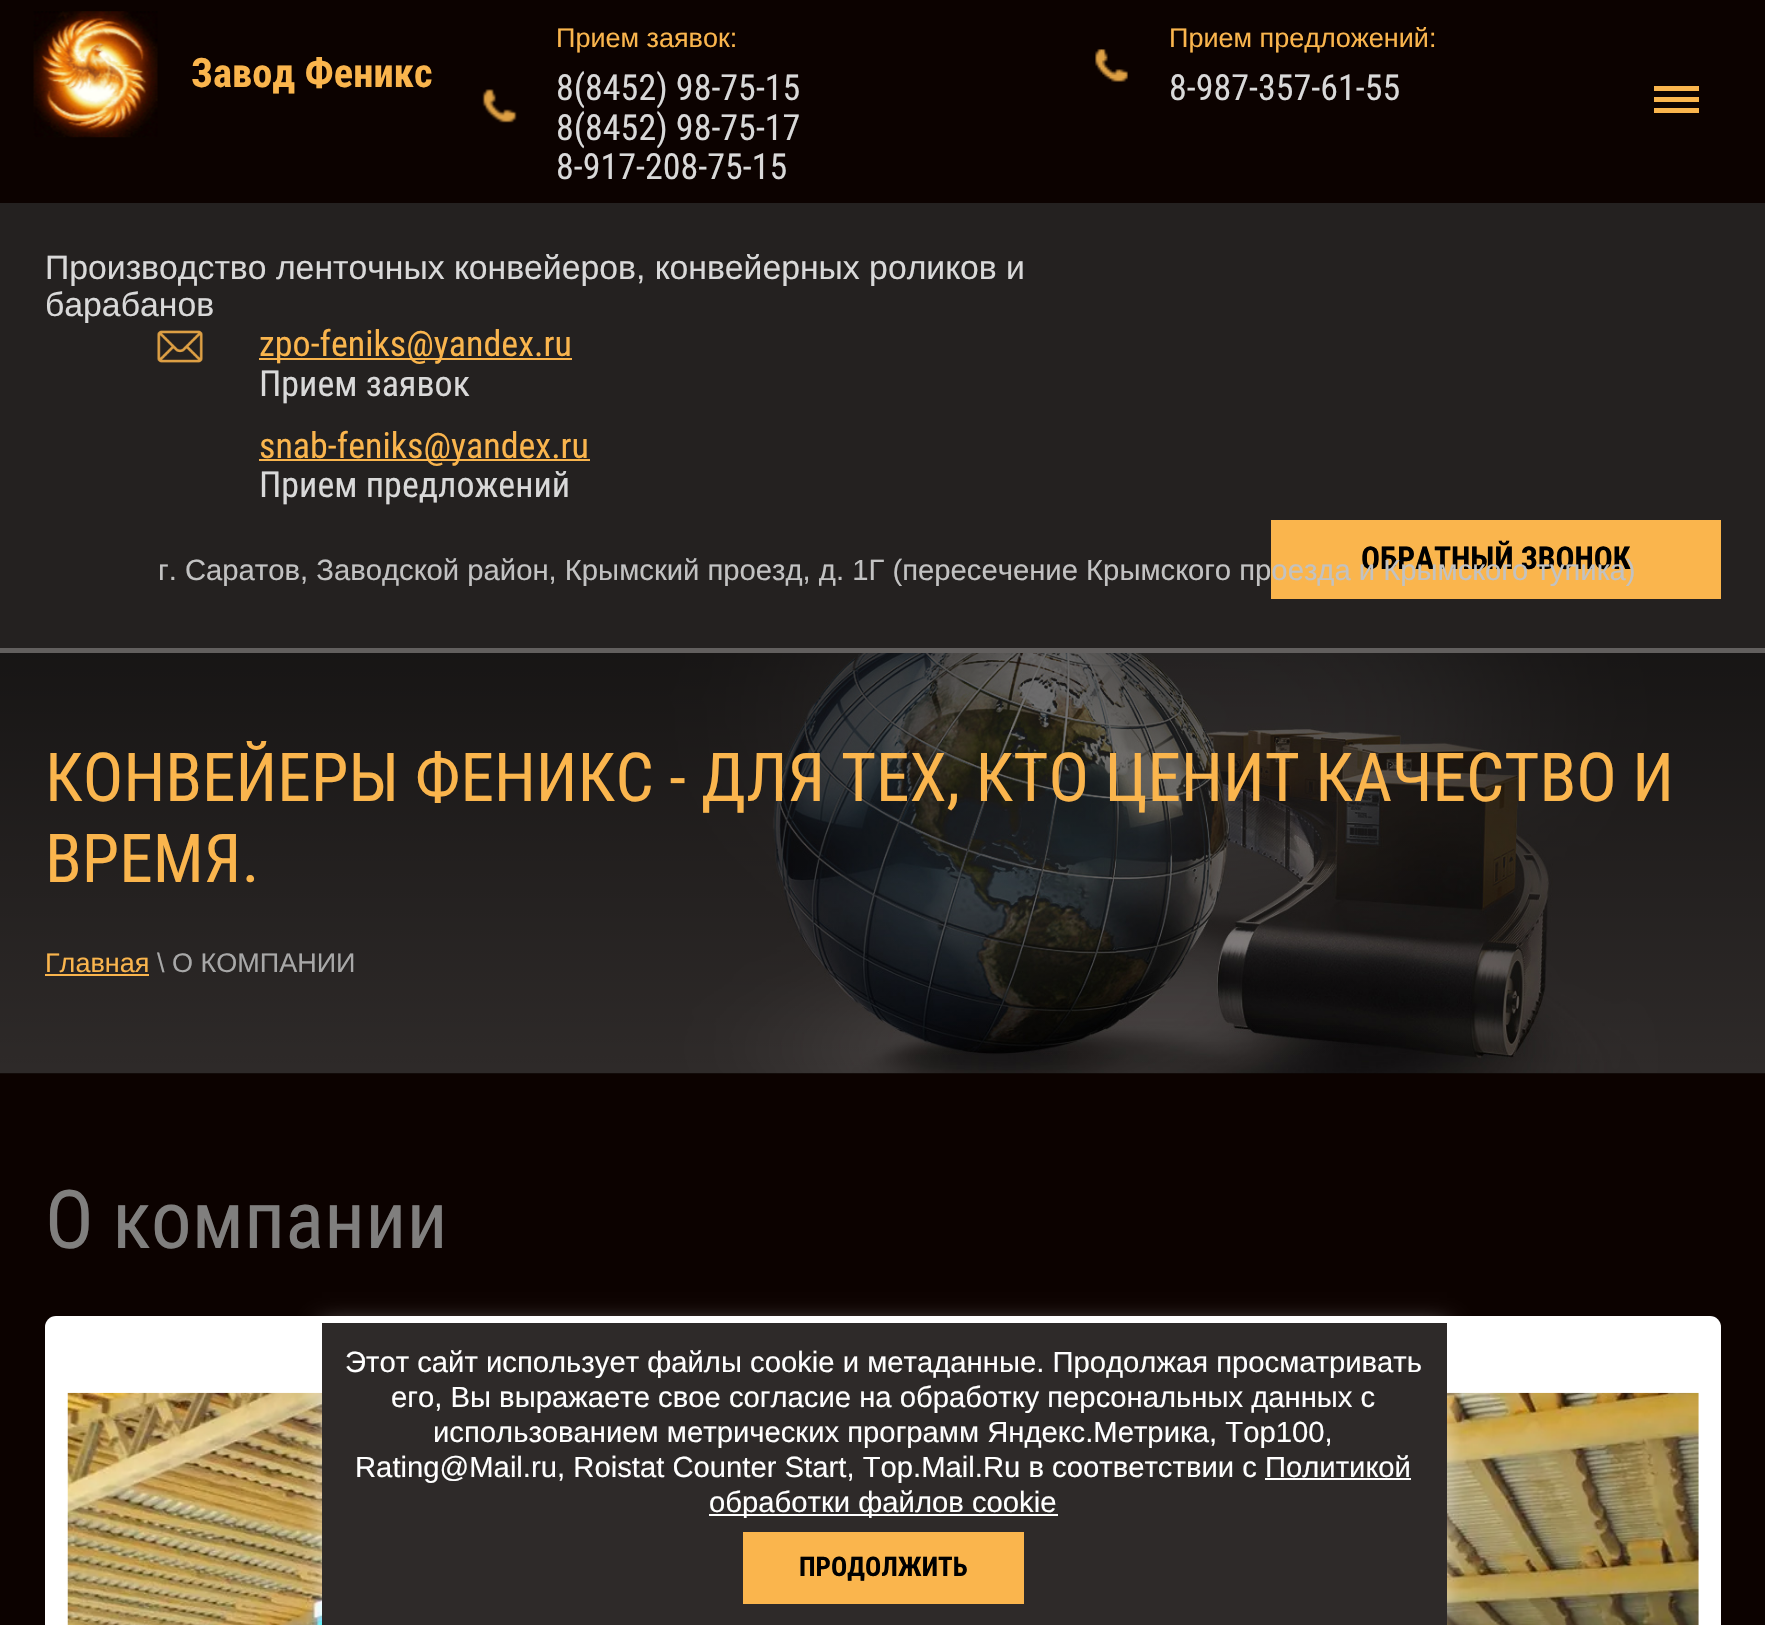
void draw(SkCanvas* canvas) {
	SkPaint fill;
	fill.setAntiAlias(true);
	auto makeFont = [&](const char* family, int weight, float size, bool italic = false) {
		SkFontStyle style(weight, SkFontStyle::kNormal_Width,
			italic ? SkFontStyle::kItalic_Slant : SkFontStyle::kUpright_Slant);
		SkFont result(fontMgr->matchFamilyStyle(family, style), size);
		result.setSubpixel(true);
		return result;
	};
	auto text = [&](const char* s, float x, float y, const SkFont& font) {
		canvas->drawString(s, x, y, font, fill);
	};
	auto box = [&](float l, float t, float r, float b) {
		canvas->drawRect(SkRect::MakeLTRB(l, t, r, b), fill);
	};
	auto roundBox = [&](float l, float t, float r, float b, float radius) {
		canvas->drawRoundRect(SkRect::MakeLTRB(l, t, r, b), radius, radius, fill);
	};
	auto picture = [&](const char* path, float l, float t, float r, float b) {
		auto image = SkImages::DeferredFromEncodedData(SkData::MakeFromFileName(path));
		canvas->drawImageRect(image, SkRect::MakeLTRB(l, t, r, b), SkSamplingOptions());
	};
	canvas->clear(0xFF0C0200);
	picture("image0.png", 33, 11, 158, 138);
	picture("image1.png", 482, 89, 517, 123);
	picture("image2.png", 1095, 49, 1128, 82);
	fill.setColor(0xFFFAB54D);
	box(1654, 86, 1699, 91);
	box(1654, 97, 1699, 102);
	box(1654, 108, 1699, 113);
	fill.setColor(0xFF242120);
	box(0, 203, 1765, 648);
	picture("image3.png", 157, 330, 203, 363);
	fill.setColor(0xFFFAB54D);
	box(259, 358, 572, 360);
	box(259, 459, 590, 461);
	box(1271, 520, 1721, 599);
	picture("image4.png", 0, 653, 1765, 1074);
	fill.setColor(0xFF625F5E);
	box(0, 648, 1765, 653);
	fill.setColor(0xFFFAB54D);
	box(45, 974, 149, 976);
	fill.setColor(0xFFFFFFFF);
	roundBox(45, 1316, 1721, 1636, 11);
	picture("image5.png", 67, 1392, 1699, 1625);
	fill.setColor(0x82FFFFFF);
	fill.setMaskFilter(SkMaskFilter::MakeBlur(kNormal_SkBlurStyle, 11));
	canvas->drawRect(SkRect::MakeLTRB(322, 1325, 1447, 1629), fill);
	fill.setMaskFilter(nullptr);
	fill.setColor(0xFF2E2A29);
	box(322, 1323, 1447, 1625);
	fill.setColor(0xFFFFFFFF);
	box(1265, 1478, 1411, 1480);
	box(709, 1514, 1058, 1516);
	fill.setColor(0xFFFAB54D);
	box(743, 1532, 1024, 1604);
	auto font1 = makeFont("Roboto Condensed", 700, 40.5f);
	text("Завод Феникс", 191, 87, font1);
	auto font2 = makeFont("Liberation Sans", 400, 27);
	text("Прием заявок:", 556, 47, font2);
	auto font3 = makeFont("Roboto Condensed", 400, 36);
	fill.setColor(0xFFD9D9D9);
	text("8(8452) 98-75-15", 556, 100, font3);
	text("8(8452) 98-75-17", 556, 140, font3);
	text("8-917-208-75-15", 556, 179, font3);
	fill.setColor(0xFFFAB54D);
	text("Прием предложений:", 1169, 47, font2);
	fill.setColor(0xFFD9D9D9);
	text("8-987-357-61-55", 1169, 100, font3);
	auto font4 = makeFont("Liberation Sans", 400, 33.75f);
	text("Производство ленточных конвейеров, конвейерных роликов и", 45, 279, font4);
	text("барабанов", 45, 316, font4);
	fill.setColor(0xFFFAB54D);
	text("zpo-feniks@yandex.ru", 259, 356, font3);
	fill.setColor(0xFFD9D9D9);
	text("Прием заявок", 259, 396, font3);
	fill.setColor(0xFFFAB54D);
	text("snab-feniks@yandex.ru", 259, 458, font3);
	fill.setColor(0xFFD9D9D9);
	text("Прием предложений", 259, 497, font3);
	auto font5 = makeFont("Roboto Condensed", 700, 31.5f);
	fill.setColor(0xFF000000);
	text("ОБРАТНЫЙ ЗВОНОК", 1361, 569, font5);
	auto font6 = makeFont("Liberation Sans", 400, 29.25f);
	fill.setColor(0xFFC2C2C2);
	text("г. Саратов, Заводской район, Крымский проезд, д. 1Г (пересечение Крымского проезда и Крымского тупика)", 158, 580, font6);
	auto font7 = makeFont("Roboto Condensed", 400, 67.5f);
	fill.setColor(0xFFFAB54D);
	text("КОНВЕЙЕРЫ ФЕНИКС - ДЛЯ ТЕХ, КТО ЦЕНИТ КАЧЕСТВО И", 45, 801, font7);
	text("ВРЕМЯ.", 45, 882, font7);
	text("Главная", 45, 972, font2);
	fill.setColor(0xFFA8A8A8);
	text("\\ О КОМПАНИИ", 157, 972, font2);
	auto font8 = makeFont("Roboto Condensed", 400, 81);
	fill.setColor(0xFF807F7E);
	text("О компании", 45, 1248, font8);
	fill.setColor(0xFFFFFFFF);
	text("Этот сайт использует файлы cookie и метаданные. Продолжая просматривать", 345, 1372, font6);
	text("его, Вы выражаете свое согласие на обработку персональных данных с", 391, 1407, font6);
	text("использованием метрических программ Яндекс.Метрика, Top100,", 433, 1442, font6);
	text("Rating@Mail.ru, Roistat Counter Start, Top.Mail.Ru в соответствии с Политикой", 355, 1477, font6);
	text("обработки файлов cookie", 709, 1512, font6);
	auto font9 = makeFont("Roboto Condensed", 700, 27);
	fill.setColor(0xFF000000);
	text("ПРОДОЛЖИТЬ", 799, 1576, font9);
}
